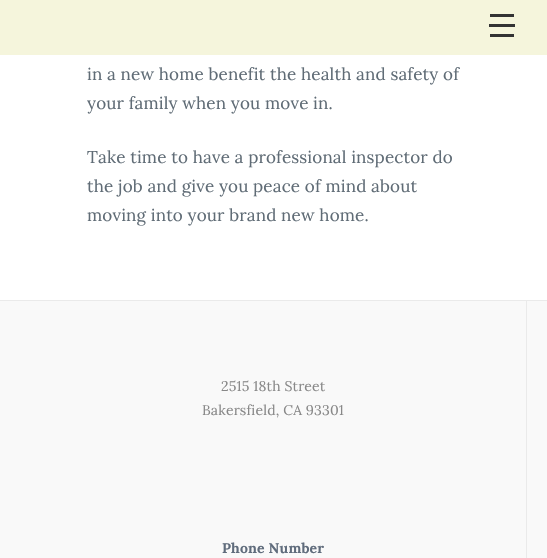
void draw(SkCanvas* canvas) {
	SkPaint fill;
	fill.setAntiAlias(true);
	auto makeFont = [&](const char* family, int weight, float size, bool italic = false) {
		SkFontStyle style(weight, SkFontStyle::kNormal_Width,
			italic ? SkFontStyle::kItalic_Slant : SkFontStyle::kUpright_Slant);
		SkFont result(fontMgr->matchFamilyStyle(family, style), size);
		result.setSubpixel(true);
		return result;
	};
	auto spacedText = [&](const char* s, float x, float y, const SkFont& font, const SkPaint& ink, float letter, float word) {
		std::vector<SkGlyphID> glyphs(font.countText(s, strlen(s), SkTextEncoding::kUTF8));
		std::vector<float> xs(glyphs.size());
		font.textToGlyphs(s, strlen(s), SkTextEncoding::kUTF8, glyphs);
		font.getXPos(glyphs, xs, x);
		float extra = 0;
		for (size_t i = 0; i < glyphs.size(); i++) {
			xs[i] += extra;
			extra += letter + word * (glyphs[i] == font.unicharToGlyph(' '));
		}
		canvas->drawTextBlob(SkTextBlob::MakeFromPosHGlyphs(glyphs, xs, y, font), 0, 0, ink);
	};
	auto box = [&](float l, float t, float r, float b) {
		canvas->drawRect(SkRect::MakeLTRB(l, t, r, b), fill);
	};
	canvas->clear(0xFFFFFFFF);
	fill.setColor(0xFFF5F5DC);
	box(0, 0, 547, 55);
	fill.setColor(0xFF333333);
	box(490, 14, 514, 17);
	box(489, 24, 515, 27);
	box(490, 34, 514, 37);
	fill.setColor(0xFFF9F9F9);
	box(0, 301, 547, 558);
	fill.setColor(0xFFEAEAEA);
	box(0, 300, 547, 301);
	box(526, 301, 527, 558);
	auto font1 = makeFont("Lora", 400, 17);
	fill.setColor(0xFF606C76);
	spacedText("in a new home benefit the health and safety of", 87, 80, font1, fill, 0.15f, 0);
	spacedText("your family when you move in.", 87, 109, font1, fill, 0.15f, 0);
	spacedText("Take time to have a professional inspector do", 87, 163, font1, fill, 0.15f, 0);
	spacedText("the job and give you peace of mind about", 87, 192, font1, fill, 0.15f, 0);
	spacedText("moving into your brand new home.", 87, 221, font1, fill, 0.15f, 0);
	auto font2 = makeFont("Lora", 400, 14);
	fill.setColor(0xFF888888);
	spacedText("2515 18th Street", 221, 391, font2, fill, 0.15f, 0);
	spacedText("Bakersfield, CA 93301", 202, 415, font2, fill, 0.15f, 0);
	auto font3 = makeFont("Lora", 700, 14);
	fill.setColor(0xFF606C7C);
	spacedText("Phone Number", 222, 553, font3, fill, 0.15f, 0);
}
